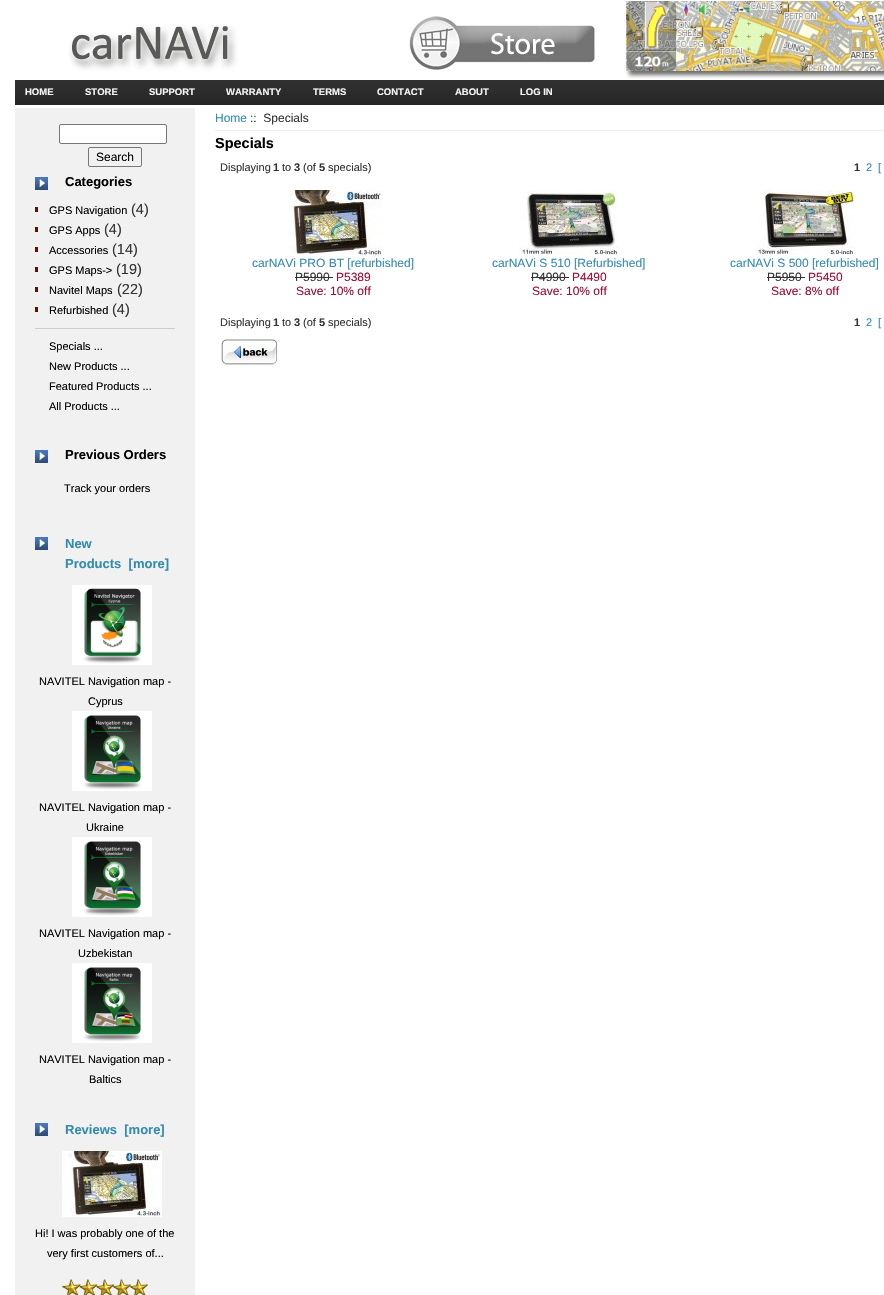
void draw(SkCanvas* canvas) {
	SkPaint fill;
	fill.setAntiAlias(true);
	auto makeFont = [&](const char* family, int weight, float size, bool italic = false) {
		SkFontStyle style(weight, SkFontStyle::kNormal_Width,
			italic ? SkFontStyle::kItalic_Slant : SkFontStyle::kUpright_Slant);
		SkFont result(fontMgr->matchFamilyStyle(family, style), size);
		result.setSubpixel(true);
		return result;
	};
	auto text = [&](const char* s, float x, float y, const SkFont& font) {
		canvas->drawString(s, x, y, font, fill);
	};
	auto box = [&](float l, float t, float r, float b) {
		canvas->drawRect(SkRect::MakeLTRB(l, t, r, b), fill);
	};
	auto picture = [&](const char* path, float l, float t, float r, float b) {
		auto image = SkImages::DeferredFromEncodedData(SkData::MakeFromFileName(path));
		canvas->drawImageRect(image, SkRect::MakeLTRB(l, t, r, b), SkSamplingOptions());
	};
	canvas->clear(0xFFFFFFFF);
	picture("image0.png", 69, 0, 884, 79);
	picture("image1.png", 15, 80, 884, 105);
	fill.setColor(0xFFF1F1F1);
	box(15, 108, 195, 1295);
	fill.setColor(0xFFFFFFFF);
	canvas->drawRoundRect(SkRect::MakeLTRB(59.5f, 124.5f, 166.5f, 143.5f), 1.5f, 1.5f, fill);
	fill.setStyle(SkPaint::kStroke_Style);
	fill.setStrokeWidth(1);
	fill.setColor(0xFF767676);
	canvas->drawRoundRect(SkRect::MakeLTRB(59.5f, 124.5f, 166.5f, 143.5f), 1.5f, 1.5f, fill);
	canvas->drawRoundRect(SkRect::MakeLTRB(88.5f, 147.5f, 141.5f, 166.5f), 1.5f, 1.5f, fill);
	picture("image2.png", 35, 177, 48, 190);
	fill.setStyle(SkPaint::kFill_Style);
	fill.setColor(0xFF5F1202);
	box(35, 207, 38, 212);
	box(35, 227, 38, 232);
	box(35, 247, 38, 252);
	box(35, 267, 38, 272);
	box(35, 287, 38, 292);
	box(35, 307, 38, 312);
	fill.setColor(0xFFCCCCCC);
	box(35, 328, 175, 329);
	picture("image2.png", 35, 450, 48, 463);
	picture("image2.png", 35, 537, 48, 550);
	picture("image3.png", 72, 585, 152, 665);
	picture("image4.png", 72, 711, 152, 791);
	picture("image5.png", 72, 837, 152, 917);
	picture("image6.png", 72, 963, 152, 1043);
	picture("image2.png", 35, 1123, 48, 1136);
	picture("image7.png", 62, 1151, 162, 1217);
	picture("image8.png", 62, 1279, 148, 1295);
	fill.setColor(0xFFEEEEEE);
	box(215, 130, 884, 131);
	picture("image9.png", 289, 190, 383, 256);
	fill.setColor(0xFF333333);
	box(295, 277, 333, 278);
	picture("image10.png", 519, 190, 619, 255);
	box(531, 277, 569, 278);
	picture("image11.png", 755, 190, 855, 255);
	box(767, 277, 805, 278);
	picture("image12.png", 221, 339, 278, 365);
	auto font1 = makeFont("Liberation Sans", 700, 9.5f);
	fill.setColor(0xFFF5F5F5);
	text("HOME", 25, 95, font1);
	text("STORE", 85, 95, font1);
	text("SUPPORT", 149, 95, font1);
	text("WARRANTY", 226, 95, font1);
	text("TERMS", 313, 95, font1);
	text("CONTACT", 377, 95, font1);
	text("ABOUT", 455, 95, font1);
	text("LOG IN", 520, 95, font1);
	auto font2 = makeFont("Liberation Sans", 400, 12);
	fill.setColor(0xFF000000);
	text("Search", 96, 161, font2);
	auto font3 = makeFont("Liberation Sans", 700, 13);
	text("Categories", 65, 186, font3);
	auto font4 = makeFont("Liberation Sans", 400, 11);
	text("GPS Navigation", 49, 214, font4);
	auto font5 = makeFont("Liberation Sans", 400, 14.5f);
	fill.setColor(0xFF333333);
	text("(4)", 131, 214, font5);
	fill.setColor(0xFF000000);
	text("GPS Apps", 49, 234, font4);
	fill.setColor(0xFF333333);
	text("(4)", 104, 234, font5);
	fill.setColor(0xFF000000);
	text("Accessories", 49, 254, font4);
	fill.setColor(0xFF333333);
	text("(14)", 112, 254, font5);
	fill.setColor(0xFF000000);
	text("GPS Maps->", 49, 274, font4);
	fill.setColor(0xFF333333);
	text("(19)", 116, 274, font5);
	fill.setColor(0xFF000000);
	text("Navitel Maps", 49, 294, font4);
	fill.setColor(0xFF333333);
	text("(22)", 117, 294, font5);
	fill.setColor(0xFF000000);
	text("Refurbished", 49, 314, font4);
	fill.setColor(0xFF333333);
	text("(4)", 112, 314, font5);
	fill.setColor(0xFF000000);
	text("Specials ...", 49, 350, font4);
	text("New Products ...", 49, 370, font4);
	text("Featured Products ...", 49, 390, font4);
	text("All Products ...", 49, 410, font4);
	text("Previous Orders", 65, 459, font3);
	text("Track your orders", 64, 492, font4);
	fill.setColor(0xFF338BAF);
	text("New", 65, 548, font3);
	text("Products  [more]", 65, 568, font3);
	fill.setColor(0xFF000000);
	text("NAVITEL Navigation map -", 39, 685, font4);
	text("Cyprus", 88, 705, font4);
	text("NAVITEL Navigation map -", 39, 811, font4);
	text("Ukraine", 86, 831, font4);
	text("NAVITEL Navigation map -", 39, 937, font4);
	text("Uzbekistan", 78, 957, font4);
	text("NAVITEL Navigation map -", 39, 1063, font4);
	text("Baltics", 89, 1083, font4);
	fill.setColor(0xFF338BAF);
	text("Reviews  [more]", 65, 1134, font3);
	fill.setColor(0xFF000000);
	text("Hi! I was probably one of the", 35, 1237, font4);
	text("very first customers of...", 47, 1257, font4);
	fill.setColor(0xFF338BAF);
	text("Home", 215, 122, font2);
	fill.setColor(0xFF333333);
	text("::  Specials", 250, 122, font2);
	auto font6 = makeFont("Liberation Sans", 700, 14.5f);
	fill.setColor(0xFF000000);
	text("Specials", 215, 148, font6);
	fill.setColor(0xFF333333);
	text("Displaying", 220, 171, font4);
	auto font7 = makeFont("Liberation Sans", 700, 11);
	text("1", 273, 171, font7);
	text("to", 282, 171, font4);
	text("3", 294, 171, font7);
	text("(of", 303, 171, font4);
	text("5", 319, 171, font7);
	text("specials)", 328, 171, font4);
	text("1", 854, 171, font7);
	fill.setColor(0xFF338BAF);
	text("2", 866, 171, font4);
	text("[", 878, 171, font4);
	text("carNAVi PRO BT [refurbished]", 252, 267, font2);
	fill.setColor(0xFF333333);
	text("P5990", 295, 281, font2);
	fill.setColor(0xFFA00C32);
	text("P5389", 336, 281, font2);
	text("Save: 10% off", 296, 295, font2);
	fill.setColor(0xFF338BAF);
	text("carNAVi S 510 [Refurbished]", 492, 267, font2);
	fill.setColor(0xFF333333);
	text("P4990", 531, 281, font2);
	fill.setColor(0xFFA00C32);
	text("P4490", 572, 281, font2);
	text("Save: 10% off", 532, 295, font2);
	fill.setColor(0xFF338BAF);
	text("carNAVi S 500 [refurbished]", 730, 267, font2);
	fill.setColor(0xFF333333);
	text("P5950", 767, 281, font2);
	fill.setColor(0xFFA00C32);
	text("P5450", 808, 281, font2);
	text("Save: 8% off", 771, 295, font2);
	fill.setColor(0xFF333333);
	text("Displaying", 220, 326, font4);
	text("1", 273, 326, font7);
	text("to", 282, 326, font4);
	text("3", 294, 326, font7);
	text("(of", 303, 326, font4);
	text("5", 319, 326, font7);
	text("specials)", 328, 326, font4);
	text("1", 854, 326, font7);
	fill.setColor(0xFF338BAF);
	text("2", 866, 326, font4);
	text("[", 878, 326, font4);
}
